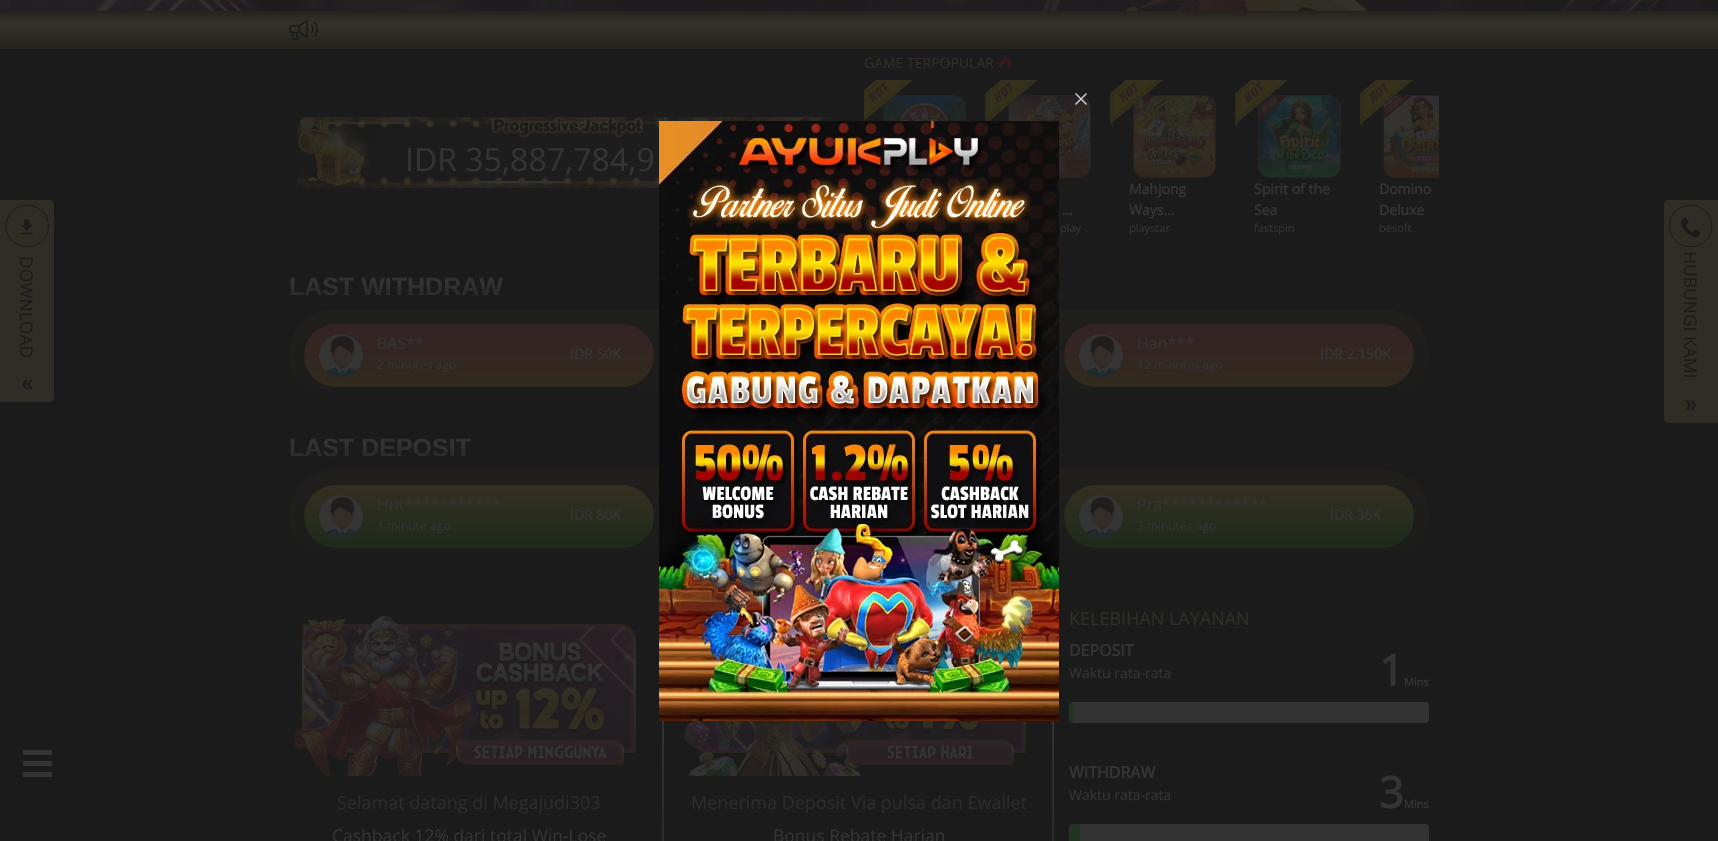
void draw(SkCanvas* canvas) {
	SkPaint fill;
	fill.setAntiAlias(true);
	auto makeFont = [&](const char* family, int weight, float size, bool italic = false) {
		SkFontStyle style(weight, SkFontStyle::kNormal_Width,
			italic ? SkFontStyle::kItalic_Slant : SkFontStyle::kUpright_Slant);
		SkFont result(fontMgr->matchFamilyStyle(family, style), size);
		result.setSubpixel(true);
		return result;
	};
	auto text = [&](const char* s, float x, float y, const SkFont& font) {
		canvas->drawString(s, x, y, font, fill);
	};
	auto box = [&](float l, float t, float r, float b) {
		canvas->drawRect(SkRect::MakeLTRB(l, t, r, b), fill);
	};
	auto roundBox = [&](float l, float t, float r, float b, float radius) {
		canvas->drawRoundRect(SkRect::MakeLTRB(l, t, r, b), radius, radius, fill);
	};
	auto picture = [&](const char* path, float l, float t, float r, float b) {
		auto image = SkImages::DeferredFromEncodedData(SkData::MakeFromFileName(path));
		canvas->drawImageRect(image, SkRect::MakeLTRB(l, t, r, b), SkSamplingOptions());
	};
	canvas->clear(0xFF1B1B1B);
	picture("image0.png", 0, 0, 1718, 11);
	{
		const SkColor colors[] = {0x401B1B1B, 0x001B1B1B};
		const float stops[] = {0, 1};
		const SkPoint ends[] = {{0, -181}, {258, -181}};
		fill.setShader(SkGradientShader::MakeLinear(ends, colors, stops, 2, SkTileMode::kClamp));
		fill.setAlpha(255);
	}
	box(10, 0, 117, 11);
	{
		const SkColor colors[] = {0x001B1B1B, 0x401B1B1B};
		const float stops[] = {0, 1};
		const SkPoint ends[] = {{1460, -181}, {1718, -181}};
		fill.setShader(SkGradientShader::MakeLinear(ends, colors, stops, 2, SkTileMode::kClamp));
		fill.setAlpha(255);
	}
	box(1612, 0, 1659, 11);
	{
		const SkColor colors[] = {0xFF25221C, 0xFF302E26, 0xFF34332B, 0xFF34332A, 0xFF2C2A23, 0xFF29261F, 0xFF26231D};
		const float stops[] = {0, 0.21f, 0.32f, 0.38f, 0.69f, 0.83f, 1};
		const SkPoint ends[] = {{859, 11}, {859, 49}};
		fill.setShader(SkGradientShader::MakeLinear(ends, colors, stops, 7, SkTileMode::kClamp));
		fill.setAlpha(255);
	}
	box(0, 11, 1718, 49);
	picture("image1.png", 289, 19, 319, 41);
	picture("image2.png", 297, 117, 835, 188);
	picture("image3.png", 999, 55, 1012, 69);
	fill.setStyle(SkPaint::kStroke_Style);
	fill.setStrokeWidth(1);
	fill.setShader(nullptr);
	fill.setColor(0xFF242323);
	canvas->drawRoundRect(SkRect::MakeLTRB(883.5f, 95.5f, 965.5f, 177.5f), 11.5f, 11.5f, fill);
	picture("image10.png", 884, 96, 965, 121);
	picture("image4.png", 864, 80, 913, 121);
	canvas->drawRoundRect(SkRect::MakeLTRB(1008.5f, 95.5f, 1090.5f, 177.5f), 11.5f, 11.5f, fill);
	picture("image12.png", 1009, 96, 1090, 177);
	picture("image5.png", 985, 80, 1038, 121);
	canvas->drawRoundRect(SkRect::MakeLTRB(1133.5f, 95.5f, 1215.5f, 177.5f), 11.5f, 11.5f, fill);
	picture("image14.png", 1134, 96, 1215, 177);
	picture("image6.png", 1110, 80, 1163, 127);
	canvas->drawRoundRect(SkRect::MakeLTRB(1258.5f, 95.5f, 1340.5f, 177.5f), 11.5f, 11.5f, fill);
	picture("image16.png", 1259, 96, 1340, 177);
	picture("image7.png", 1235, 80, 1288, 127);
	canvas->save();
	canvas->clipRect(SkRect::MakeLTRB(864, 80, 1439, 251));
	canvas->drawRoundRect(SkRect::MakeLTRB(1383.5f, 95.5f, 1465.5f, 177.5f), 11.5f, 11.5f, fill);
	canvas->restore();
	picture("image18.png", 1384, 96, 1439, 177);
	picture("image8.png", 1360, 80, 1413, 127);
	picture("image9.png", 864, 80, 913, 121);
	picture("image11.png", 985, 80, 1038, 121);
	picture("image13.png", 1110, 80, 1163, 127);
	picture("image15.png", 1235, 80, 1288, 127);
	picture("image17.png", 1360, 80, 1413, 127);
	fill.setStyle(SkPaint::kFill_Style);
	{
		const SkColor colors[] = {0xFF201F1C, 0xFF1B1B1B};
		const float stops[] = {0, 1};
		const SkPoint ends[] = {{859, 309}, {859, 402}};
		fill.setShader(SkGradientShader::MakeLinear(ends, colors, stops, 2, SkTileMode::kClamp));
		fill.setAlpha(255);
	}
	roundBox(289, 309, 1429, 402, 46.5f);
	{
		const SkColor colors[] = {0xFF342326, 0xFF312A1D};
		const float stops[] = {0, 1};
		const SkPoint ends[] = {{479, 324}, {479, 387}};
		fill.setShader(SkGradientShader::MakeLinear(ends, colors, stops, 2, SkTileMode::kClamp));
		fill.setAlpha(255);
	}
	roundBox(304, 324, 654, 387, 31.5f);
	picture("image19.png", 319, 334, 363, 377);
	{
		const SkColor colors[] = {0xFF342326, 0xFF312A1D};
		const float stops[] = {0, 1};
		const SkPoint ends[] = {{1239, 324}, {1239, 387}};
		fill.setShader(SkGradientShader::MakeLinear(ends, colors, stops, 2, SkTileMode::kClamp));
		fill.setAlpha(255);
	}
	roundBox(1064, 324, 1414, 387, 31.5f);
	picture("image19.png", 1079, 334, 1123, 377);
	{
		const SkColor colors[] = {0xFF201F1C, 0xFF1B1B1B};
		const float stops[] = {0, 1};
		const SkPoint ends[] = {{859, 470}, {859, 563}};
		fill.setShader(SkGradientShader::MakeLinear(ends, colors, stops, 2, SkTileMode::kClamp));
		fill.setAlpha(255);
	}
	roundBox(289, 470, 1429, 563, 46.5f);
	{
		const SkColor colors[] = {0xFF342F21, 0xFF1E2B1B};
		const float stops[] = {0, 1};
		const SkPoint ends[] = {{479, 485}, {479, 548}};
		fill.setShader(SkGradientShader::MakeLinear(ends, colors, stops, 2, SkTileMode::kClamp));
		fill.setAlpha(255);
	}
	roundBox(304, 485, 654, 548, 31.5f);
	picture("image20.png", 319, 495, 363, 538);
	{
		const SkColor colors[] = {0xFF342F21, 0xFF1E2B1B};
		const float stops[] = {0, 1};
		const SkPoint ends[] = {{1239, 485}, {1239, 548}};
		fill.setShader(SkGradientShader::MakeLinear(ends, colors, stops, 2, SkTileMode::kClamp));
		fill.setAlpha(255);
	}
	roundBox(1064, 485, 1414, 548, 31.5f);
	picture("image20.png", 1079, 495, 1123, 538);
	fill.setShader(nullptr);
	fill.setColor(0xFF333333);
	roundBox(1069, 702, 1429, 723, 4);
	fill.setColor(0xFF213422);
	canvas->drawPath(SkPathBuilder().moveTo(1073, 702).lineTo(1073, 723).cubicTo(1071, 723, 1069, 721, 1069, 719).lineTo(1069, 706).cubicTo(1069, 704, 1071, 702, 1073, 702).close().detach(), fill);
	fill.setColor(0x261B1B1B);
	box(1069, 722, 1073, 723);
	fill.setColor(0xFF333333);
	roundBox(1069, 824, 1429, 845, 4);
	fill.setColor(0xFF213422);
	canvas->drawPath(SkPathBuilder().moveTo(1073, 824).lineTo(1080, 824).lineTo(1080, 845).lineTo(1073, 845).cubicTo(1071, 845, 1069, 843, 1069, 841).lineTo(1069, 828).cubicTo(1069, 826, 1071, 824, 1073, 824).close().detach(), fill);
	picture("image21.png", 294, 616, 636, 776);
	picture("image22.png", 662, 721, 664, 841);
	picture("image23.png", 684, 721, 1026, 776);
	picture("image24.png", 1052, 721, 1054, 841);
	picture("image25.png", 1075, 93, 1087, 105);
	picture("image26.png", 659, 121, 1059, 721);
	fill.setColor(0xFF2F2D25);
	canvas->drawPath(SkPathBuilder().moveTo(0, 200).lineTo(49, 200).cubicTo(52, 200, 54, 202, 54, 205).lineTo(54, 397).cubicTo(54, 400, 52, 402, 49, 402).lineTo(0, 402).close().detach(), fill);
	fill.setStyle(SkPaint::kStroke_Style);
	fill.setColor(0xFF1B1B1B);
	canvas->drawPath(SkPathBuilder().moveTo(27.5f, 205.5f).cubicTo(55.5f, 205.5f, 55.5f, 246.5f, 27.5f, 246.5f).cubicTo(-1, 246.5f, -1, 205.5f, 27.5f, 205.5f).close().detach(), fill);
	picture("image27.png", 20, 219, 33, 235);
	picture("image28.png", 21, 379, 33, 389);
	fill.setStyle(SkPaint::kFill_Style);
	fill.setColor(0xFF2F2D25);
	canvas->drawPath(SkPathBuilder().moveTo(1669, 200).lineTo(1718, 200).lineTo(1718, 423).lineTo(1669, 423).cubicTo(1666, 423, 1664, 421, 1664, 418).lineTo(1664, 205).cubicTo(1664, 202, 1666, 200, 1669, 200).close().detach(), fill);
	fill.setStyle(SkPaint::kStroke_Style);
	fill.setColor(0xFF1B1B1B);
	canvas->drawPath(SkPathBuilder().moveTo(1690.5f, 205.5f).cubicTo(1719, 205.5f, 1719, 246.5f, 1690.5f, 246.5f).cubicTo(1662.5f, 246.5f, 1662.5f, 205.5f, 1690.5f, 205.5f).close().detach(), fill);
	picture("image29.png", 1680, 217, 1701, 238);
	picture("image30.png", 1685, 400, 1697, 410);
	fill.setStyle(SkPaint::kFill_Style);
	fill.setColor(0xFF343434);
	box(23, 750, 52, 755);
	box(23, 761, 52, 766);
	box(23, 772, 52, 777);
	auto font1 = makeFont("Open Sans", 400, 32);
	text("IDR 35,887,784,9", 405, 171, font1);
	auto font2 = makeFont("Open Sans", 400, 14);
	fill.setColor(0xFF302E26);
	text("GAME TERPOPULAR", 864, 68, font2);
	auto font3 = makeFont("Open Sans", 700, 14);
	fill.setColor(0xFF343434);
	text("…", 1062, 215, font3);
	auto font4 = makeFont("Open Sans", 400, 11);
	text("play", 1060, 232, font4);
	text("Mahjong", 1129, 194, font3);
	text("Ways…", 1129, 215, font3);
	text("playstar", 1129, 232, font4);
	text("Spirit of the", 1254, 194, font3);
	text("Sea", 1254, 215, font3);
	text("fastspin", 1254, 232, font4);
	text("Domino", 1379, 194, font3);
	text("Deluxe", 1379, 215, font3);
	text("besoft", 1379, 232, font4);
	auto font5 = makeFont("Liberation Sans", 700, 25);
	{
		const SkColor colors[] = {0xFF2C2B2B, 0xFF343434, 0xFF2C2C2C, 0xFF343434};
		const float stops[] = {0, 0.37f, 0.7f, 1};
		const SkPoint ends[] = {{859, 271}, {859, 301}};
		fill.setShader(SkGradientShader::MakeLinear(ends, colors, stops, 4, SkTileMode::kClamp));
		fill.setAlpha(255);
	}
	text("LAST WITHDRAW", 289, 295, font5);
	auto font6 = makeFont("Open Sans", 400, 16);
	fill.setShader(nullptr);
	fill.setColor(0xFF343434);
	text("BAS**", 377, 349, font6);
	auto font7 = makeFont("Open Sans", 400, 12);
	text("2 minutes ago", 377, 369, font7);
	text("IDR 50K", 570, 359, font3);
	text("Han***", 1137, 349, font6);
	text("12 minutes ago", 1137, 369, font7);
	text("IDR 2,150K", 1320, 359, font3);
	{
		const SkColor colors[] = {0xFF2C2B2B, 0xFF343434, 0xFF2C2C2C, 0xFF343434};
		const float stops[] = {0, 0.37f, 0.7f, 1};
		const SkPoint ends[] = {{859, 432}, {859, 462}};
		fill.setShader(SkGradientShader::MakeLinear(ends, colors, stops, 4, SkTileMode::kClamp));
		fill.setAlpha(255);
	}
	text("LAST DEPOSIT", 289, 456, font5);
	fill.setShader(nullptr);
	fill.setColor(0xFF343434);
	text("Hut***********", 377, 510, font6);
	text("1 minute ago", 377, 530, font7);
	text("IDR 80K", 570, 520, font3);
	text("Pra************", 1137, 510, font6);
	text("3 minutes ago", 1137, 530, font7);
	text("IDR 36K", 1330, 520, font3);
	auto font8 = makeFont("Open Sans", 400, 18);
	fill.setColor(0xFF302E26);
	text("KELEBIHAN LAYANAN", 1069, 625, font8);
	auto font9 = makeFont("Open Sans", 700, 16);
	fill.setColor(0xFF343434);
	text("DEPOSIT", 1069, 656, font9);
	text("Waktu rata-rata", 1069, 678, font2);
	auto font10 = makeFont("Open Sans", 700, 43);
	text("1", 1379, 686, font10);
	auto font11 = makeFont("Open Sans", 700, 11);
	text("Mins", 1404, 686, font11);
	text("WITHDRAW", 1069, 778, font9);
	text("Waktu rata-rata", 1069, 800, font2);
	text("3", 1379, 808, font10);
	text("Mins", 1404, 808, font11);
	fill.setColor(0xFF2C2C2C);
	text("Selamat datang di Megajudi303", 337, 809, font8);
	auto font12 = makeFont("Open Sans", 400, 17.5f);
	fill.setColor(0xFF343434);
	text("Cashback 12% dari total Win-Lose", 332, 842, font12);
	fill.setColor(0xFF2C2C2C);
	text("Menerima Deposit Via pulsa dan Ewallet", 691, 809, font8);
	fill.setColor(0xFF343434);
	text("Bonus Rebate Harian", 773, 842, font12);
	fill.setColor(0xFF1B1B1B);
	canvas->save();
	canvas->rotate(90, 20, 256);
	text("DOWNLOAD", 20, 256, font12);
	canvas->restore();
	canvas->save();
	canvas->rotate(90, 1684, 251);
	text("HUBUNGI KAMI", 1684, 251, font12);
	canvas->restore();
}
